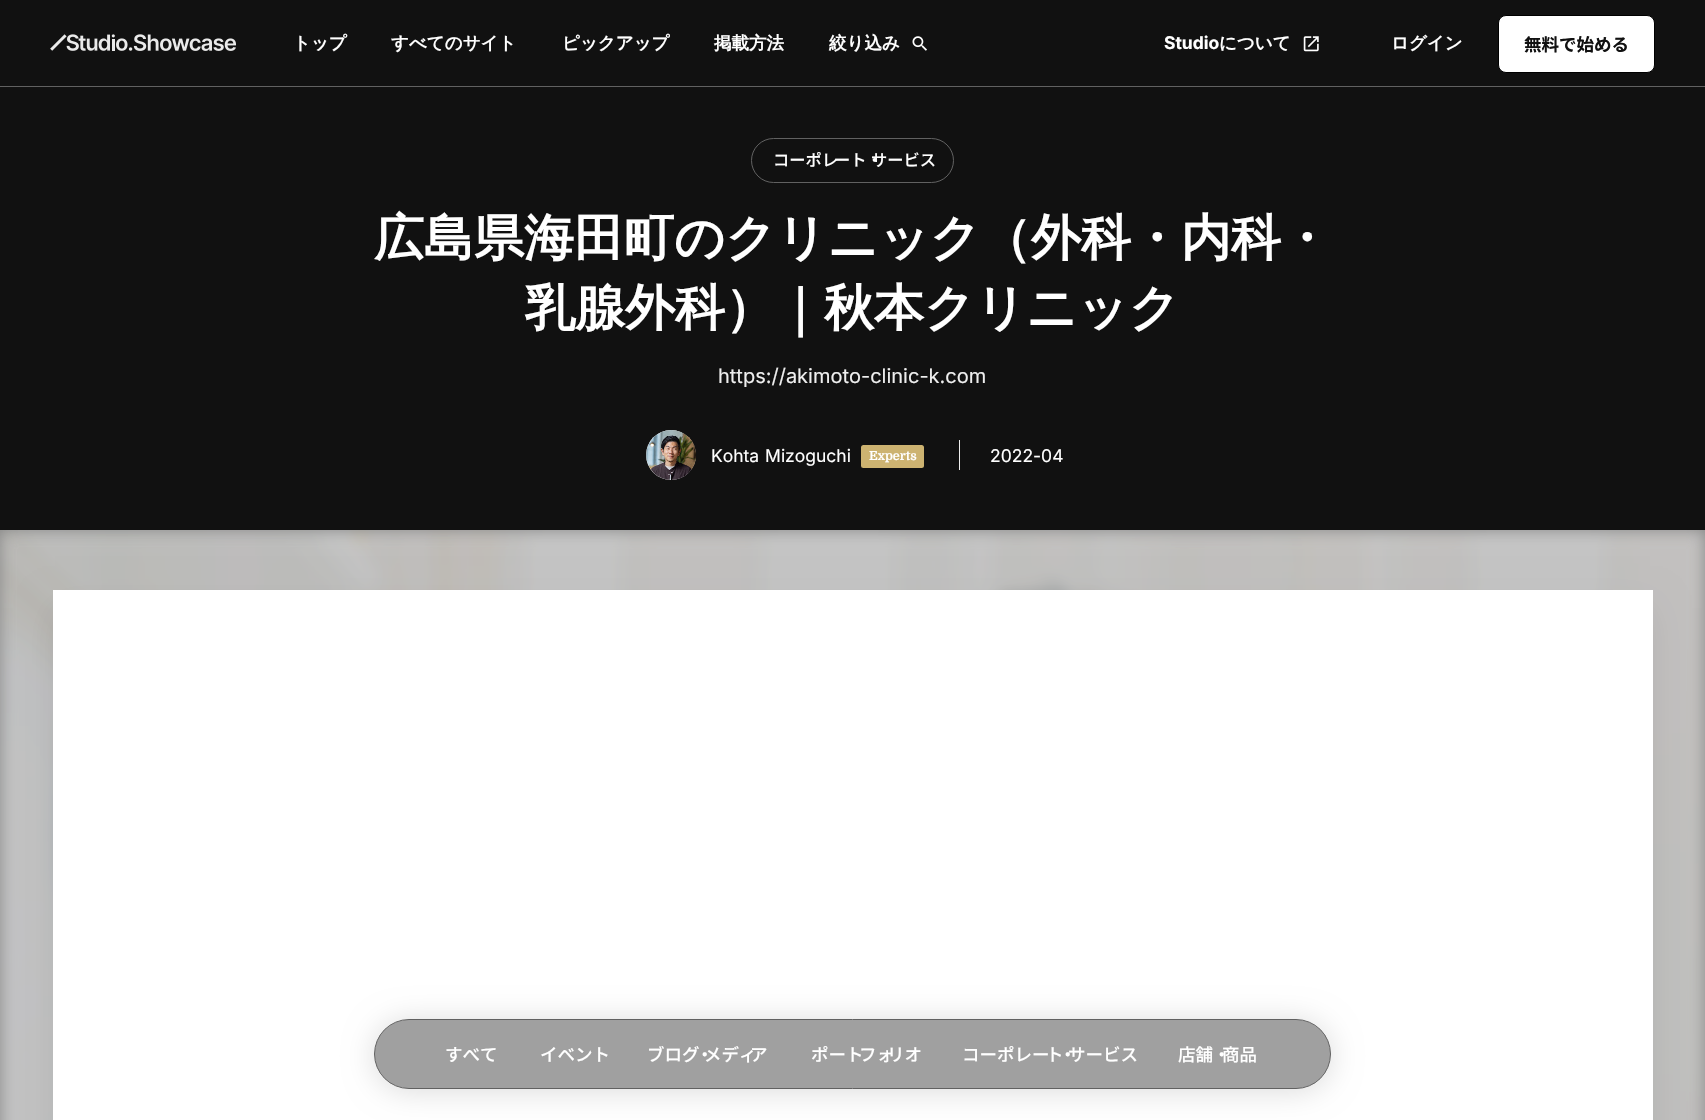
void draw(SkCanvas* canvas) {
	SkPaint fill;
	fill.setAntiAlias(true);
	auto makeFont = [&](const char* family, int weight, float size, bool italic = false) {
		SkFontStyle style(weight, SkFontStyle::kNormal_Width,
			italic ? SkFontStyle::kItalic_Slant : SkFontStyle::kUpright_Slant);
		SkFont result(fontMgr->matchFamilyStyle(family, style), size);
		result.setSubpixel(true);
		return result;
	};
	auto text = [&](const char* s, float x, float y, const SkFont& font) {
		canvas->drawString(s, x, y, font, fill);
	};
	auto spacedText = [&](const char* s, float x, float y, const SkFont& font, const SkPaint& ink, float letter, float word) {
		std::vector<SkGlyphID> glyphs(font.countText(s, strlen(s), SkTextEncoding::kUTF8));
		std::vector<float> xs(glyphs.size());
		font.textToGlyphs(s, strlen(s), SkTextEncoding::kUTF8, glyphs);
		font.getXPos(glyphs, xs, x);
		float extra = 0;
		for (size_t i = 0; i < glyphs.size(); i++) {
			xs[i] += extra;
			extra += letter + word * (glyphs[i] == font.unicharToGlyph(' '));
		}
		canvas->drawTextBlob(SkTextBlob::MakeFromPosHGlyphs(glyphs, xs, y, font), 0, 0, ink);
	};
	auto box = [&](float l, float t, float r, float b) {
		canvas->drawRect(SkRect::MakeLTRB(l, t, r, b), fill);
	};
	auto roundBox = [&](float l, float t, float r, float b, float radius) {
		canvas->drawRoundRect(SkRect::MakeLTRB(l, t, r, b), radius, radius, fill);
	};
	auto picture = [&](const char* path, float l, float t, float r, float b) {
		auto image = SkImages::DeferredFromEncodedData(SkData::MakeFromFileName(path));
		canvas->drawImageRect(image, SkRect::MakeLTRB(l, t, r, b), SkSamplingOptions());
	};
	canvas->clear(0xFF111111);
	fill.setColor(0xFF888888);
	box(0, 530, 1705, 1120);
	fill.setColor(0xFF616161);
	box(0, 86, 1705, 87);
	picture("image0.png", 50, 34, 236, 51);
	picture("image1.png", 912, 36, 927, 51);
	picture("image2.png", 1303, 36, 1319, 52);
	fill.setColor(0xFFFFFFFF);
	canvas->drawRoundRect(SkRect::MakeLTRB(1498.5f, 15.5f, 1654.5f, 72.5f), 7.5f, 7.5f, fill);
	fill.setStyle(SkPaint::kStroke_Style);
	fill.setStrokeWidth(1);
	fill.setColor(0xFF000000);
	canvas->drawRoundRect(SkRect::MakeLTRB(1498.5f, 15.5f, 1654.5f, 72.5f), 7.5f, 7.5f, fill);
	fill.setColor(0xFF616161);
	canvas->drawRoundRect(SkRect::MakeLTRB(751.5f, 138.5f, 953.5f, 182.5f), 22, 22, fill);
	fill.setStyle(SkPaint::kFill_Style);
	fill.setColor(0xFFFFFFFF);
	canvas->drawCircle(671, 455, 25, fill);
	picture("image3.png", 646, 430, 696, 480);
	fill.setColor(0xFFCDB371);
	roundBox(861, 445, 924, 468, 2.5f);
	fill.setColor(0xFFEEEEEE);
	box(959, 440, 960, 470);
	picture("image4.png", 0, 530, 1705, 1120);
	fill.setColor(0x14000000);
	fill.setMaskFilter(SkMaskFilter::MakeBlur(kNormal_SkBlurStyle, 17.5f));
	canvas->drawRect(SkRect::MakeLTRB(55, 608, 1650, 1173), fill);
	fill.setMaskFilter(nullptr);
	fill.setColor(0xFFFFFFFF);
	box(53, 590, 1653, 1120);
	canvas->save();
	canvas->clipPath(SkPathBuilder(SkPathFillType::kEvenOdd).moveTo(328, 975).lineTo(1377, 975).lineTo(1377, 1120).lineTo(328, 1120).close().moveTo(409, 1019).lineTo(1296, 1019).cubicTo(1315.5f, 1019, 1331, 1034.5f, 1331, 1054).cubicTo(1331, 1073.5f, 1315.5f, 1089, 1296, 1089).lineTo(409, 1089).cubicTo(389.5f, 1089, 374, 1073.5f, 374, 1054).cubicTo(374, 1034.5f, 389.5f, 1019, 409, 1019).close().detach(), true);
	fill.setColor(0x24000000);
	fill.setMaskFilter(SkMaskFilter::MakeBlur(kNormal_SkBlurStyle, 15));
	canvas->drawRoundRect(SkRect::MakeLTRB(374, 1021, 1331, 1091), 35, 35, fill);
	fill.setMaskFilter(nullptr);
	canvas->restore();
	fill.setColor(0x66111111);
	canvas->drawRoundRect(SkRect::MakeLTRB(374.5f, 1019.5f, 1330.5f, 1088.5f), 34.5f, 34.5f, fill);
	fill.setStyle(SkPaint::kStroke_Style);
	fill.setColor(0xFF616161);
	canvas->drawRoundRect(SkRect::MakeLTRB(374.5f, 1019.5f, 1330.5f, 1088.5f), 34.5f, 34.5f, fill);
	auto font1 = makeFont("WenQuanYi Zen Hei", 700, 17.5f);
	fill.setStyle(SkPaint::kFill_Style);
	fill.setColor(0xFFFFFFFF);
	text("トップ", 293, 49, font1);
	text("すべてのサイト", 391, 49, font1);
	text("ピックアップ", 562, 49, font1);
	text("掲載方法", 714, 49, font1);
	text("絞り込み", 829, 49, font1);
	auto font2 = makeFont("Inter", 700, 17.5f);
	text("Studio", 1164, 49, font2);
	text("について", 1219, 49, font1);
	text("ログイン", 1391, 49, font1);
	auto font3 = makeFont("Noto Sans JP", 700, 17.5f);
	fill.setColor(0xFF111111);
	text("無料で始める", 1524, 51, font3);
	auto font4 = makeFont("Noto Sans JP", 500, 16.25f);
	fill.setColor(0xFFFFFFFF);
	text("コーポレ", 773, 166, font4);
	text("ート・", 834, 166, font4);
	text("サービス", 871, 166, font4);
	auto font5 = makeFont("WenQuanYi Zen Hei", 700, 50);
	text("広島県海田町のクリニック（外科・内科・", 374, 255, font5);
	text("乳腺外科）｜秋本クリニック", 525, 325, font5);
	auto font6 = makeFont("Inter", 400, 20);
	fill.setColor(0xFFEEEEEE);
	text("https://akimoto-clinic-k.com", 718, 383, font6);
	auto font7 = makeFont("Inter", 400, 17.5f);
	fill.setColor(0xFFFFFFFF);
	spacedText("Kohta Mizoguchi", 711, 462, font7, fill, 0, 1);
	auto font8 = makeFont("Domine", 700, 12.5f);
	text("Experts", 869, 460, font8);
	text("2022-04", 990, 462, font7);
	auto font9 = makeFont("Noto Sans JP", 500, 17.5f);
	text("すべて", 445, 1061, font9);
	text("イベント", 540, 1061, font9);
	text("ブログ", 647, 1061, font9);
	text("・", 696, 1061, font9);
	text("メディ", 704, 1061, font9);
	text("ア", 750, 1061, font9);
	text("ポート", 811, 1061, font9);
	text("フォ", 859, 1061, font9);
	text("リオ", 887, 1061, font9);
	text("コーポレー", 962, 1061, font9);
	text("ト", 1046, 1061, font9);
	text("・", 1059, 1061, font9);
	text("サービス", 1068, 1061, font9);
	text("店舗・", 1178, 1061, font9);
	text("商品", 1222, 1061, font9);
}
